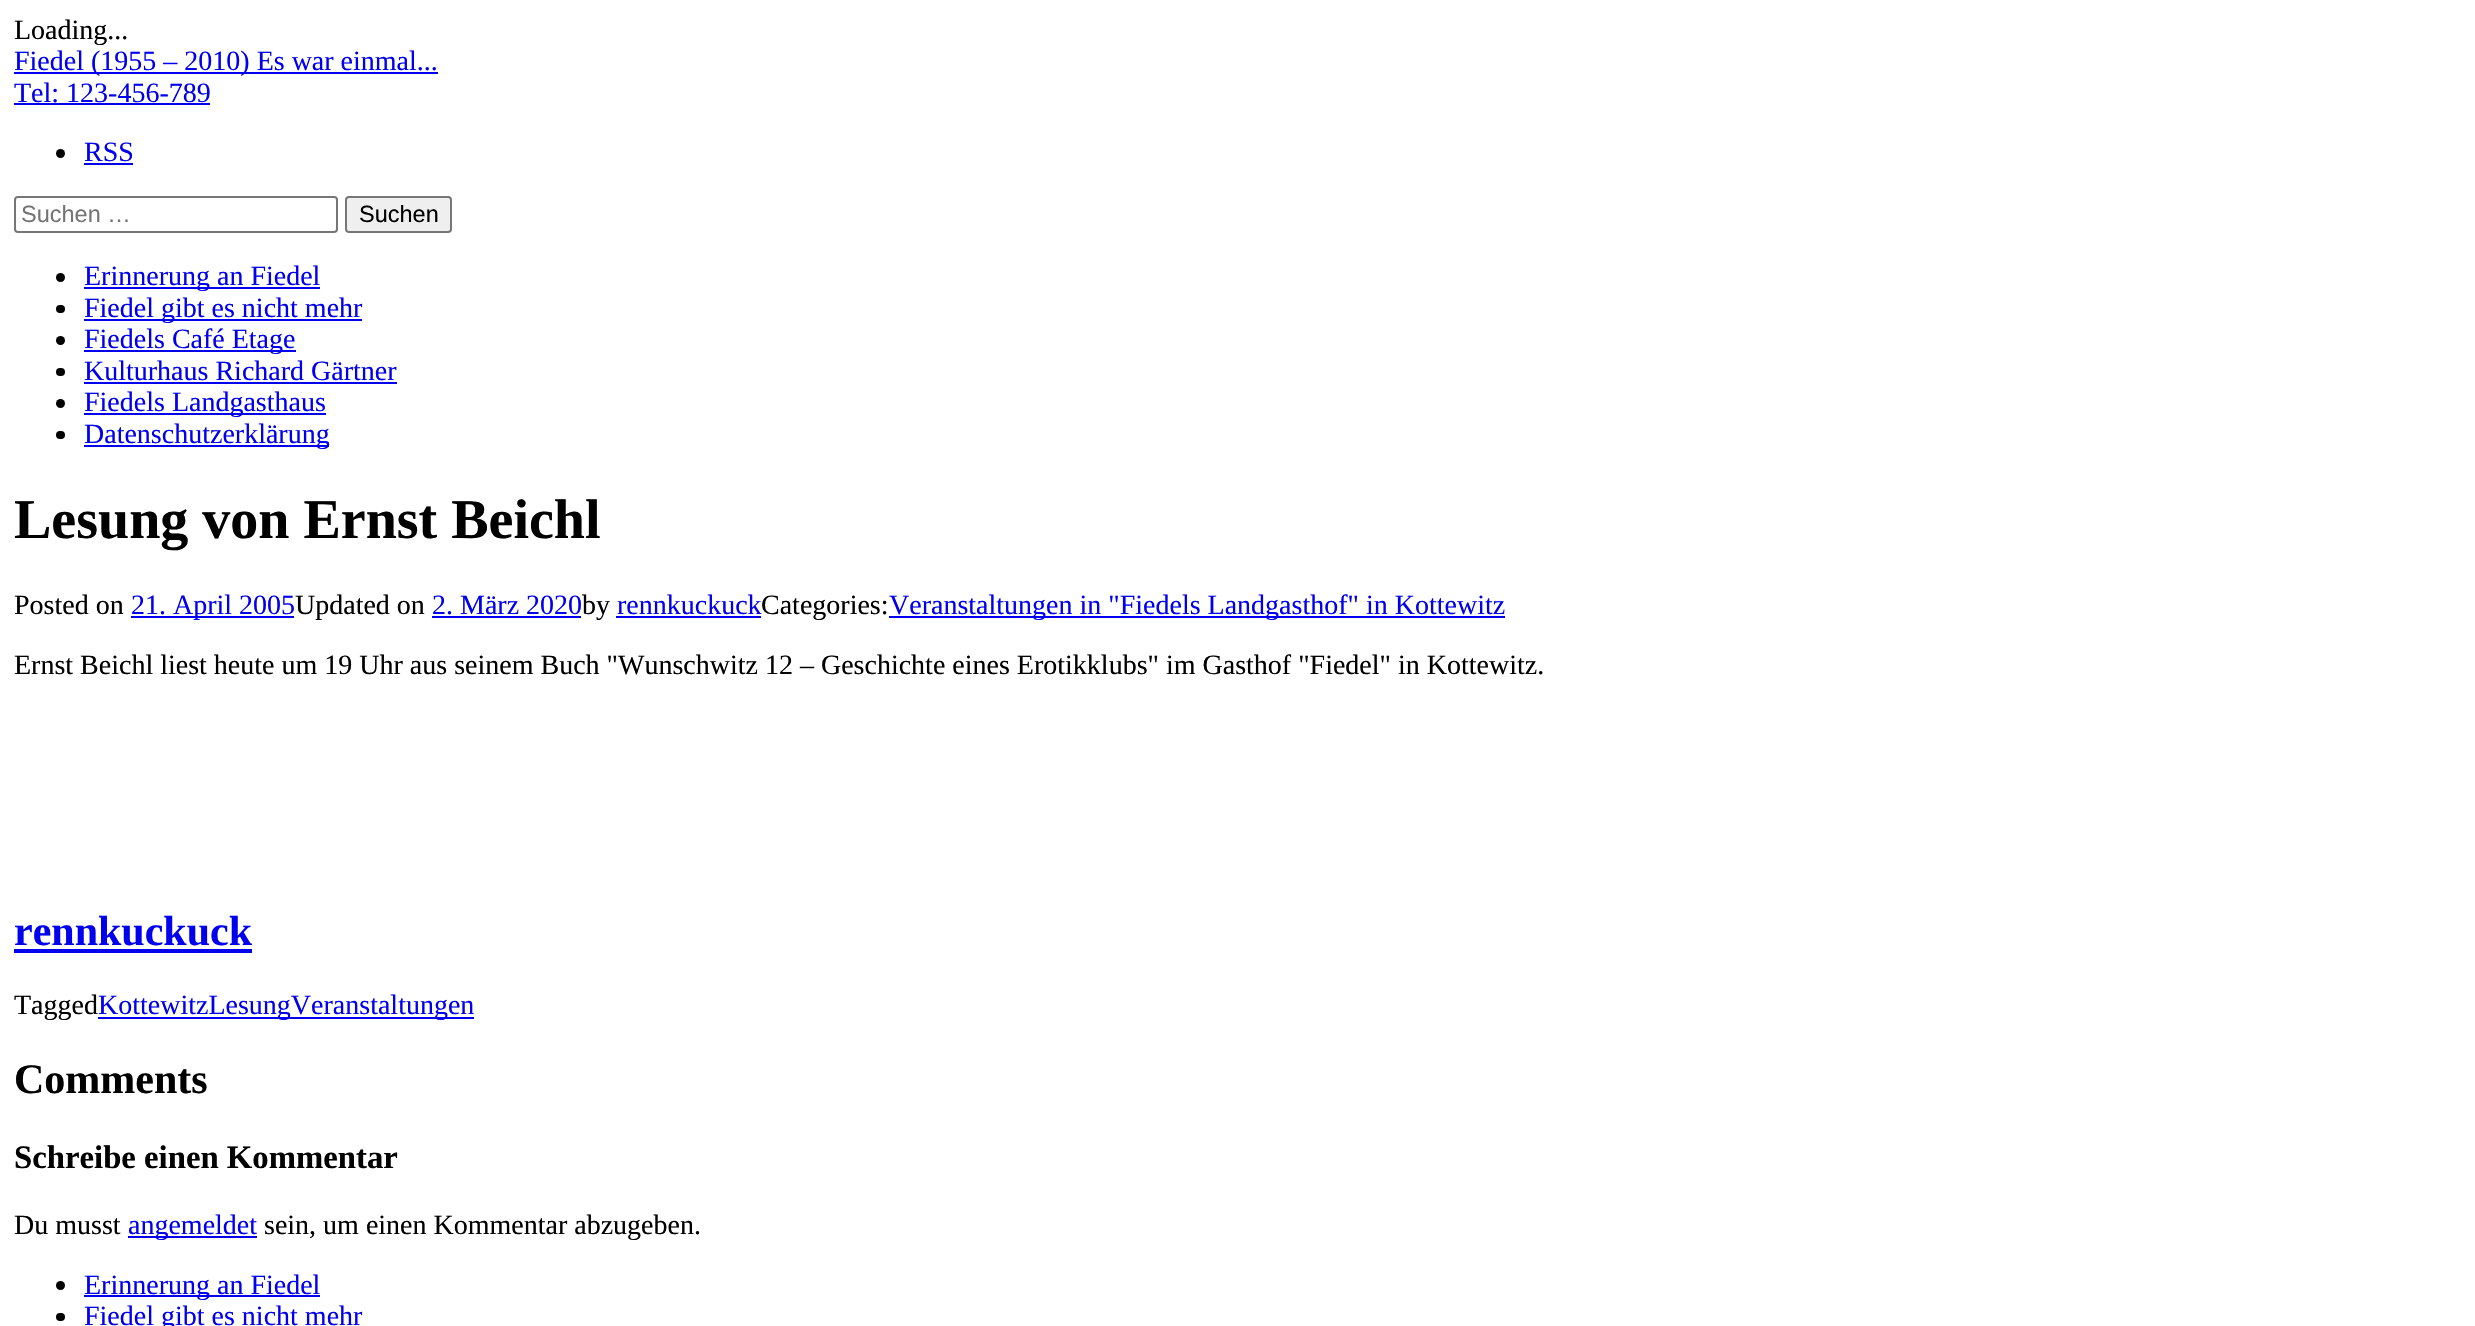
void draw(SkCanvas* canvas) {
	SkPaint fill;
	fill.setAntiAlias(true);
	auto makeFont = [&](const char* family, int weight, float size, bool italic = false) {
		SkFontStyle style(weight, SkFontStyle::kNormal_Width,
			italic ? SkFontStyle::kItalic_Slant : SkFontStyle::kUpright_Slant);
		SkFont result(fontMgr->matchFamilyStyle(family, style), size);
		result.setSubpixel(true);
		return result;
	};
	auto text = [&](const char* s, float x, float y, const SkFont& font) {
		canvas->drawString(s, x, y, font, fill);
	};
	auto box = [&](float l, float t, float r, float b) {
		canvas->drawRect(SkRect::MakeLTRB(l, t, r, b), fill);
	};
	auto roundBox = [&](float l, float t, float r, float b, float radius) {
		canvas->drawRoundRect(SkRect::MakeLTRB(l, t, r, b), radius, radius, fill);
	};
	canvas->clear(0xFFFFFFFF);
	fill.setColor(0xFF0000EE);
	box(14, 72, 438, 74);
	box(14, 103, 210, 105);
	fill.setColor(0xFF000000);
	canvas->drawCircle(60.5f, 153.5f, 4.5f, fill);
	fill.setColor(0xFF0000EE);
	box(84, 163, 133, 165);
	fill.setStyle(SkPaint::kStroke_Style);
	fill.setStrokeWidth(2);
	fill.setColor(0xFF767676);
	canvas->drawRoundRect(SkRect::MakeLTRB(15, 197, 337, 232), 3, 3, fill);
	fill.setStyle(SkPaint::kFill_Style);
	fill.setColor(0xFFEFEFEF);
	canvas->drawRoundRect(SkRect::MakeLTRB(346, 197, 451, 232), 3, 3, fill);
	fill.setStyle(SkPaint::kStroke_Style);
	fill.setColor(0xFF767676);
	canvas->drawRoundRect(SkRect::MakeLTRB(346, 197, 451, 232), 3, 3, fill);
	fill.setStyle(SkPaint::kFill_Style);
	fill.setColor(0xFF000000);
	canvas->drawCircle(60.5f, 277.5f, 4.5f, fill);
	fill.setColor(0xFF0000EE);
	box(84, 287, 320, 289);
	fill.setColor(0xFF000000);
	roundBox(56, 305, 65, 313, 4);
	fill.setColor(0xFF0000EE);
	box(84, 319, 362, 321);
	fill.setColor(0xFF000000);
	canvas->drawCircle(60.5f, 340.5f, 4.5f, fill);
	fill.setColor(0xFF0000EE);
	box(84, 350, 296, 352);
	fill.setColor(0xFF000000);
	roundBox(56, 368, 65, 376, 4);
	fill.setColor(0xFF0000EE);
	box(84, 382, 397, 384);
	fill.setColor(0xFF000000);
	canvas->drawCircle(60.5f, 403.5f, 4.5f, fill);
	fill.setColor(0xFF0000EE);
	box(84, 413, 326, 415);
	fill.setColor(0xFF000000);
	roundBox(56, 431, 65, 439, 4);
	fill.setColor(0xFF0000EE);
	box(84, 445, 329, 447);
	box(131, 616, 294, 618);
	box(432, 616, 581, 618);
	box(616, 616, 761, 618);
	box(889, 616, 1505, 618);
	box(14, 949, 252, 953);
	box(98, 1017, 474, 1019);
	box(128, 1236, 257, 1238);
	fill.setColor(0xFF000000);
	canvas->drawCircle(60.5f, 1285.5f, 4.5f, fill);
	fill.setColor(0xFF0000EE);
	box(84, 1295, 320, 1297);
	fill.setColor(0xFF000000);
	roundBox(56, 1313, 65, 1321, 4);
	auto font1 = makeFont("Liberation Serif", 400, 28);
	text("Loading...", 14, 39, font1);
	fill.setColor(0xFF0000EE);
	text("Fiedel (1955 – 2010) Es war einmal...", 14, 70, font1);
	text("Tel: 123-456-789", 14, 102, font1);
	text("RSS", 84, 161, font1);
	auto font2 = makeFont("Liberation Sans", 400, 23.5f);
	fill.setColor(0xFF757575);
	text("Suchen …", 21, 222, font2);
	fill.setColor(0xFF000000);
	text("Suchen", 359, 222, font2);
	fill.setColor(0xFF0000EE);
	text("Erinnerung an Fiedel", 84, 285, font1);
	text("Fiedel gibt es nicht mehr", 84, 317, font1);
	text("Fiedels Café Etage", 84, 348, font1);
	text("Kulturhaus Richard Gärtner", 84, 380, font1);
	text("Fiedels Landgasthaus", 84, 411, font1);
	text("Datenschutzerklärung", 84, 443, font1);
	auto font3 = makeFont("Liberation Serif", 700, 56);
	fill.setColor(0xFF000000);
	text("Lesung von Ernst Beichl", 14, 538, font3);
	text("Posted on", 14, 614, font1);
	fill.setColor(0xFF0000EE);
	text("21. April 2005", 131, 614, font1);
	fill.setColor(0xFF000000);
	text("Updated on", 295, 614, font1);
	fill.setColor(0xFF0000EE);
	text("2. März 2020", 432, 614, font1);
	fill.setColor(0xFF000000);
	text("by", 582, 614, font1);
	fill.setColor(0xFF0000EE);
	text("rennkuckuck", 617, 614, font1);
	fill.setColor(0xFF000000);
	text("Categories:", 761, 614, font1);
	fill.setColor(0xFF0000EE);
	text("Veranstaltungen in \"Fiedels Landgasthof\" in Kottewitz", 889, 614, font1);
	fill.setColor(0xFF000000);
	text("Ernst Beichl liest heute um 19 Uhr aus seinem Buch \"Wunschwitz 12 – Geschichte eines Erotikklubs\" im Gasthof \"Fiedel\" in Kottewitz.", 14, 674, font1);
	auto font4 = makeFont("Liberation Serif", 700, 42);
	fill.setColor(0xFF0000EE);
	text("rennkuckuck", 14, 945, font4);
	fill.setColor(0xFF000000);
	text("Tagged", 14, 1014, font1);
	fill.setColor(0xFF0000EE);
	text("KottewitzLesungVeranstaltungen", 98, 1014, font1);
	fill.setColor(0xFF000000);
	text("Comments", 14, 1093, font4);
	auto font5 = makeFont("Liberation Serif", 700, 32.75f);
	text("Schreibe einen Kommentar", 14, 1168, font5);
	text("Du musst", 14, 1234, font1);
	fill.setColor(0xFF0000EE);
	text("angemeldet", 128, 1234, font1);
	fill.setColor(0xFF000000);
	text("sein, um einen Kommentar abzugeben.", 264, 1234, font1);
	fill.setColor(0xFF0000EE);
	text("Erinnerung an Fiedel", 84, 1294, font1);
	text("Fiedel gibt es nicht mehr", 84, 1325, font1);
}
